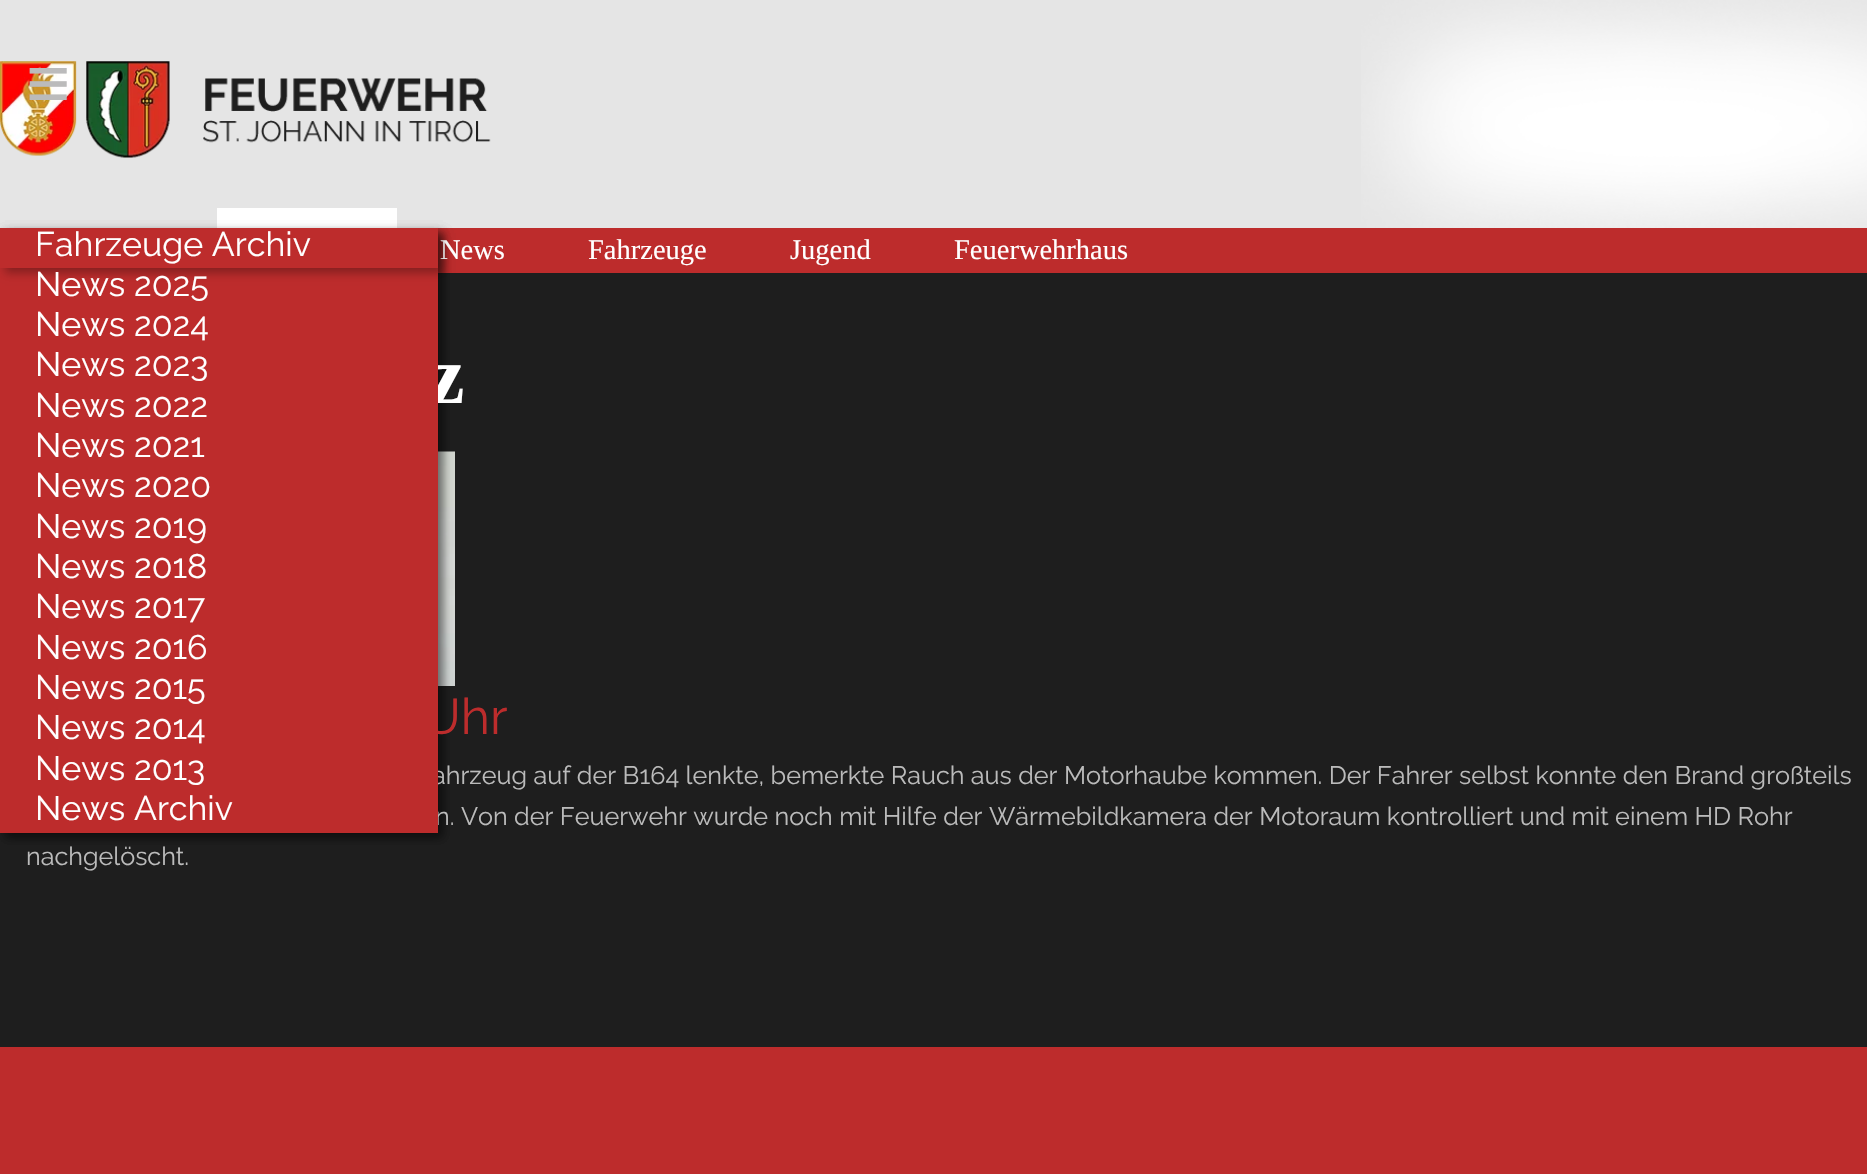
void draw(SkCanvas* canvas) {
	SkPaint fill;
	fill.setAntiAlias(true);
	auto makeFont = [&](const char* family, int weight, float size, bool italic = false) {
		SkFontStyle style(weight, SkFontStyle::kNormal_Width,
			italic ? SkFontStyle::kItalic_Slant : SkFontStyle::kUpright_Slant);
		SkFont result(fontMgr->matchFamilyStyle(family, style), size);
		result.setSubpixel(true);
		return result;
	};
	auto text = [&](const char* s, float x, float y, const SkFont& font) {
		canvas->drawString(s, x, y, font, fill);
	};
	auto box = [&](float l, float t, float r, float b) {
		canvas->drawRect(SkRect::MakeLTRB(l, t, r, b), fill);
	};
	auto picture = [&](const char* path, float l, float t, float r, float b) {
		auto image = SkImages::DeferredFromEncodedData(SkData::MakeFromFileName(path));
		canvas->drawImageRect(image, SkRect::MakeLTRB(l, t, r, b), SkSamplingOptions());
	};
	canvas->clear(0xFF1E1E1E);
	fill.setColor(0xFFE5E5E5);
	box(0, 0, 1867, 228);
	picture("image0.png", 1361, 0, 1867, 228);
	picture("image1.png", 0, 61, 491, 158);
	fill.setColor(0xFFBD2C2C);
	box(438, 228, 1867, 273);
	fill.setColor(0xFFFFFFFF);
	box(217, 208, 397, 228);
	picture("image2.png", 438, 451, 455, 686);
	fill.setColor(0x4D000000);
	fill.setMaskFilter(SkMaskFilter::MakeBlur(kNormal_SkBlurStyle, 4.5f));
	canvas->drawRect(SkRect::MakeLTRB(5, 233, 443, 838), fill);
	fill.setMaskFilter(nullptr);
	fill.setMaskFilter(SkMaskFilter::MakeBlur(kNormal_SkBlurStyle, 4.5f));
	canvas->drawRect(SkRect::MakeLTRB(5, 233, 443, 838), fill);
	fill.setMaskFilter(nullptr);
	fill.setColor(0xFFBD2C2C);
	box(0, 1047, 1867, 1174);
	auto font1 = makeFont("Liberation Sans", 400, 76);
	fill.setColor(0xFFBBBBBB);
	text("≡", 26, 109, font1);
	auto font2 = makeFont("Liberation Serif", 400, 28.5f);
	fill.setColor(0xFFFFFFFF);
	text("Fahrzeuge", 588, 259, font2);
	text("Jugend", 790, 259, font2);
	text("Feuerwehrhaus", 954, 259, font2);
	text("News", 440, 259, font2);
	auto font3 = makeFont("Liberation Serif", 700, 82);
	text("z", 428, 403, font3);
	auto font4 = makeFont("Raleway", 400, 50);
	fill.setColor(0xFFBD2C2C);
	text("Uhr", 423, 734, font4);
	auto font5 = makeFont("Raleway", 400, 25.2f);
	fill.setColor(0xFFBBBBBB);
	text("ahrzeug auf der B164 lenkte, bemerkte Rauch aus der Motorhaube kommen. Der Fahrer selbst konnte den Brand großteils", 432, 784, font5);
	text("n. Von der Feuerwehr wurde noch mit Hilfe der Wärmebildkamera der Motoraum kontrolliert und mit einem HD Rohr", 435, 825, font5);
	fill.setColor(0xFFBD2C2C);
	box(0, 268, 438, 833);
	fill.setColor(0x4D000000);
	fill.setMaskFilter(SkMaskFilter::MakeBlur(kNormal_SkBlurStyle, 4.5f));
	canvas->drawRect(SkRect::MakeLTRB(5, 233, 443, 273), fill);
	fill.setMaskFilter(nullptr);
	fill.setColor(0xFFBD2C2C);
	box(0, 228, 438, 268);
	auto font6 = makeFont("Raleway", 400, 34);
	fill.setColor(0xFFFFFFFF);
	text("Fahrzeuge Archiv", 35, 256, font6);
	text("News Archiv", 35, 820, font6);
	text("News 2013", 35, 780, font6);
	text("News 2014", 35, 739, font6);
	text("News 2015", 35, 699, font6);
	text("News 2016", 35, 659, font6);
	text("News 2017", 35, 618, font6);
	text("News 2018", 35, 578, font6);
	text("News 2019", 35, 538, font6);
	text("News 2020", 35, 497, font6);
	text("News 2021", 35, 457, font6);
	text("News 2022", 35, 417, font6);
	text("News 2023", 35, 376, font6);
	text("News 2024", 35, 336, font6);
	text("News 2025", 35, 296, font6);
	fill.setColor(0xFFBBBBBB);
	text("nachgelöscht.", 26, 865, font5);
}
